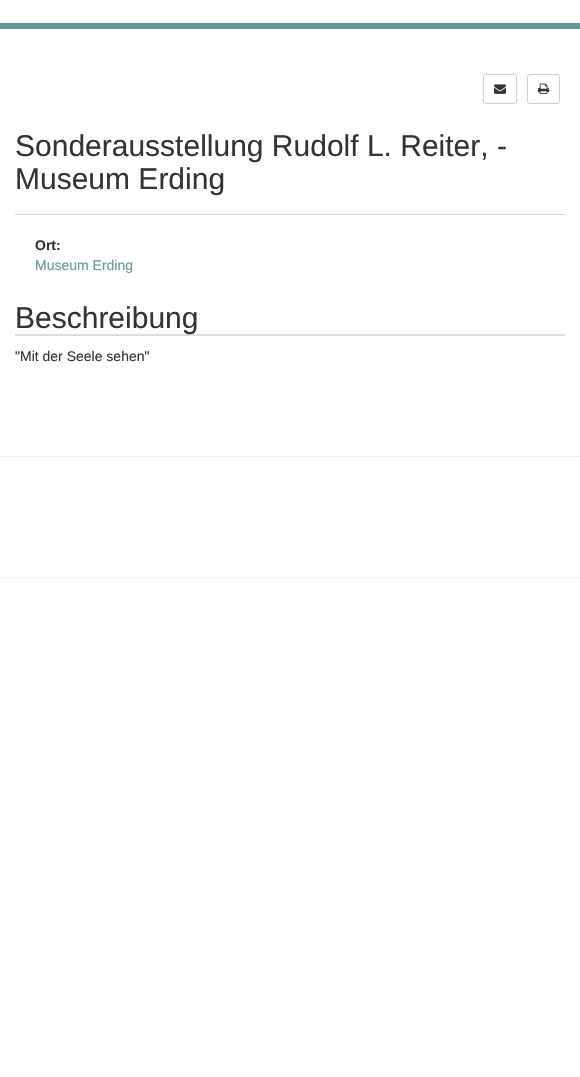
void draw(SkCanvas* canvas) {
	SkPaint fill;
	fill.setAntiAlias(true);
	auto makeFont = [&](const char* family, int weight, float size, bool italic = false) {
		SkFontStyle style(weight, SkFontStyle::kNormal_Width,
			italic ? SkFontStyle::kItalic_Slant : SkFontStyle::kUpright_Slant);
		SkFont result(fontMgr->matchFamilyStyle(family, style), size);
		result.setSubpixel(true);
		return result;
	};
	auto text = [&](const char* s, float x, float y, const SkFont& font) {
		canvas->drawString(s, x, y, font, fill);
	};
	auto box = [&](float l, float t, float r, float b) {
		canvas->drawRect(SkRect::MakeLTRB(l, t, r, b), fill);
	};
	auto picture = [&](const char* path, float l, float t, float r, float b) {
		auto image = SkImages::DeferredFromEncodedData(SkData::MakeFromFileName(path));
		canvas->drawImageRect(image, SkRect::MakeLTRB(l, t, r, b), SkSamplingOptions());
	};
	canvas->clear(0xFFFFFFFF);
	fill.setColor(0xFF659596);
	box(0, 23, 580, 29);
	fill.setStyle(SkPaint::kStroke_Style);
	fill.setStrokeWidth(1);
	fill.setColor(0xFFCCCCCC);
	canvas->drawRoundRect(SkRect::MakeLTRB(483.5f, 74.5f, 516.5f, 103.5f), 2.5f, 2.5f, fill);
	picture("image0.png", 494, 84, 506, 94);
	canvas->drawRoundRect(SkRect::MakeLTRB(527.5f, 74.5f, 559.5f, 103.5f), 2.5f, 2.5f, fill);
	picture("image1.png", 538, 83, 550, 94);
	fill.setStyle(SkPaint::kFill_Style);
	fill.setColor(0xFFCEDBDB);
	box(15, 214, 565, 215);
	fill.setColor(0xFFDDDDDD);
	box(15, 334, 565, 336);
	fill.setColor(0xFFEEEEEE);
	box(0, 456, 580, 457);
	box(0, 577, 580, 578);
	auto font1 = makeFont("Liberation Sans", 400, 30);
	fill.setColor(0xFF333333);
	text("Sonderausstellung Rudolf L. Reiter, -", 15, 156, font1);
	text("Museum Erding", 15, 189, font1);
	auto font2 = makeFont("Liberation Sans", 700, 14);
	text("Ort:", 35, 250, font2);
	auto font3 = makeFont("Liberation Sans", 400, 14);
	fill.setColor(0xFF659596);
	text("Museum Erding", 35, 270, font3);
	fill.setColor(0xFF333333);
	text("Beschreibung", 15, 328, font1);
	text("\"Mit der Seele sehen\"", 15, 361, font3);
}
